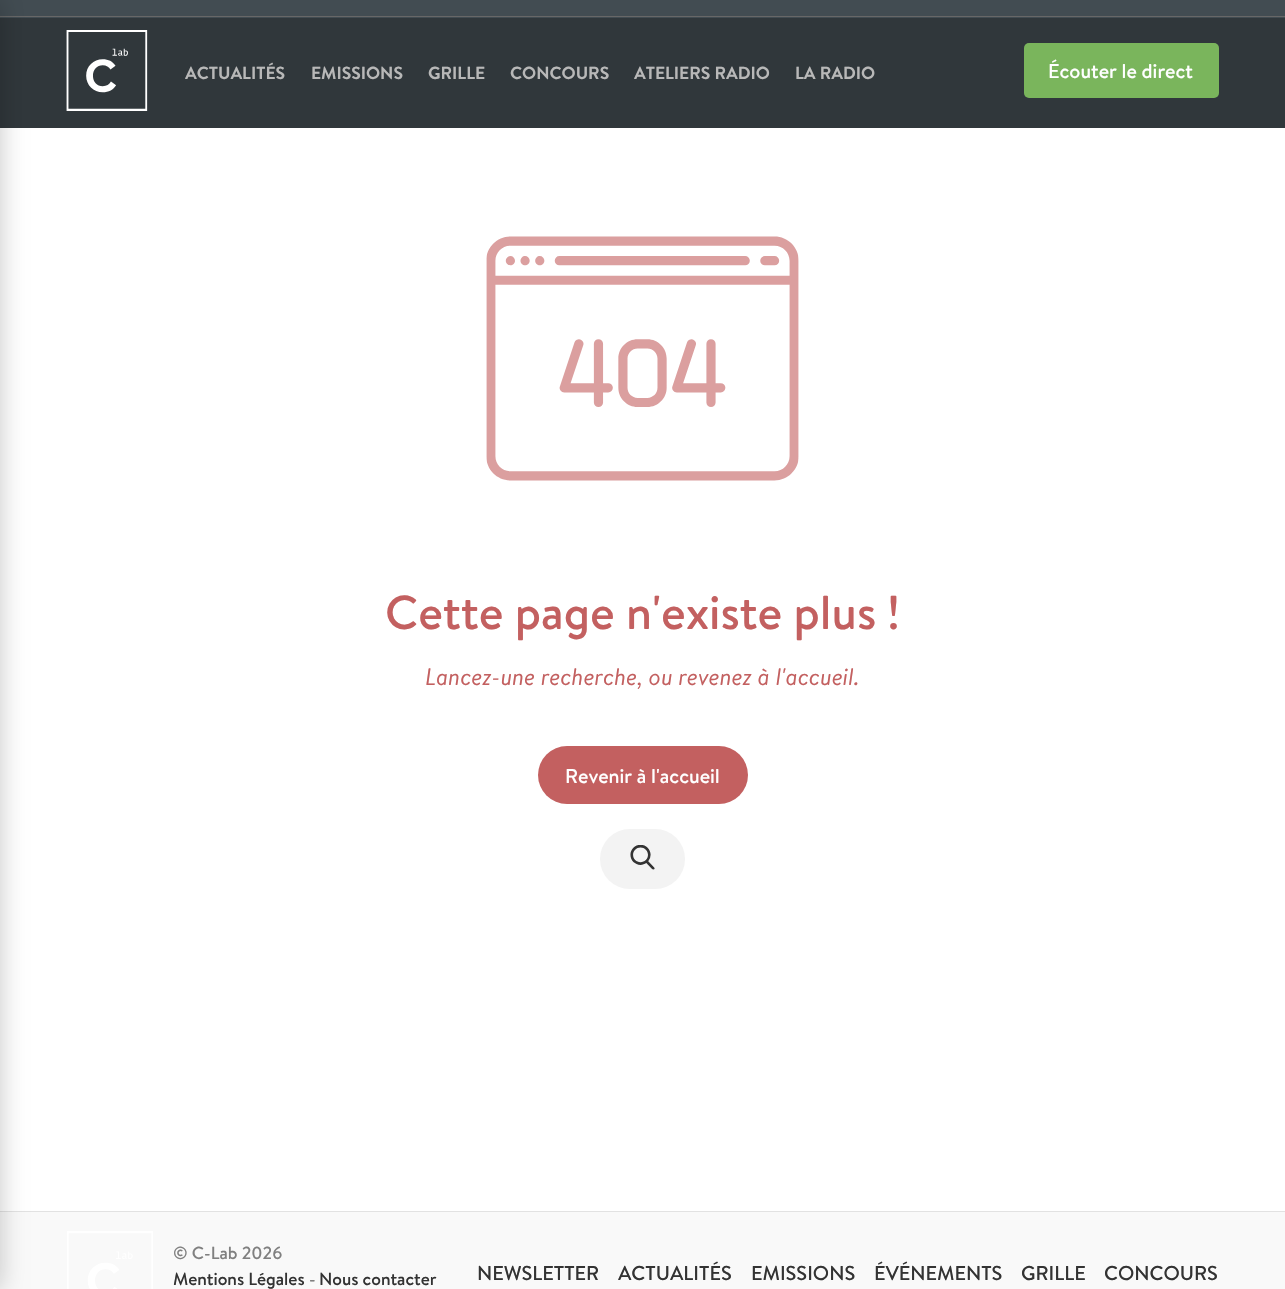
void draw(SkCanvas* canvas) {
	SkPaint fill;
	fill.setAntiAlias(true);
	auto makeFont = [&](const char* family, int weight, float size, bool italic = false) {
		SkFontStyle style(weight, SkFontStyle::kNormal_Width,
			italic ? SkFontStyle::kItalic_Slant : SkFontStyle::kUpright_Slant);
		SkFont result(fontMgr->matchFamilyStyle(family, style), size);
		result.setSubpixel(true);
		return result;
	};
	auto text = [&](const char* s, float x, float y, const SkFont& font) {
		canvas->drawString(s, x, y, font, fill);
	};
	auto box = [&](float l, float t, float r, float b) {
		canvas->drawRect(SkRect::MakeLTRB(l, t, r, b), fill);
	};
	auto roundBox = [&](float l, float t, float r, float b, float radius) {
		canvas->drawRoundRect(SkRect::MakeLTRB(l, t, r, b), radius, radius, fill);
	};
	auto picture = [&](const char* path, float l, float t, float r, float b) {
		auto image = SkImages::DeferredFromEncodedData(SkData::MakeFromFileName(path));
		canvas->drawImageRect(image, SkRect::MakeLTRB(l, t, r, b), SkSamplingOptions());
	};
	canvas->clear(0xFFFFFFFF);
	fill.setColor(0xFF424C52);
	box(0, 0, 1285, 18);
	fill.setColor(0xFF676767);
	box(0, 16, 1285, 17);
	fill.setColor(0xFF30373B);
	box(0, 18, 1285, 128);
	fill.setColor(0xFFF9F9F9);
	box(0, 1212, 1285, 1289);
	fill.setColor(0xFFE2E2E2);
	box(0, 1211, 1285, 1212);
	fill.setColor(0x38000000);
	fill.setMaskFilter(SkMaskFilter::MakeBlur(kNormal_SkBlurStyle, 13));
	canvas->drawRect(SkRect::MakeLTRB(-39, 0, 0, 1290), fill);
	fill.setMaskFilter(nullptr);
	picture("image0.png", 66, 30, 148, 111);
	fill.setColor(0xFF7AB55C);
	roundBox(1024, 43, 1219, 98, 5);
	picture("image1.png", 486, 236, 799, 481);
	fill.setColor(0xFFC36060);
	roundBox(538, 746, 748, 804, 29);
	fill.setColor(0xFFF3F3F3);
	roundBox(600, 829, 685, 889, 30);
	picture("image2.png", 630, 845, 655, 870);
	picture("image3.png", 67, 1231, 153, 1289);
	auto font1 = makeFont("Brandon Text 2", 400, 17.5f);
	fill.setColor(0xFFB8B8B8);
	text("ACTUALITÉS", 185, 79, font1);
	text("EMISSIONS", 311, 79, font1);
	text("GRILLE", 428, 79, font1);
	text("CONCOURS", 510, 79, font1);
	text("ATELIERS RADIO", 634, 79, font1);
	text("LA RADIO", 795, 79, font1);
	auto font2 = makeFont("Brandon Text", 400, 20);
	fill.setColor(0xFFFFFFFF);
	text("Écouter le direct", 1048, 78, font2);
	auto font3 = makeFont("Brandon Text", 400, 47.5f);
	fill.setColor(0xFFC36060);
	text("Cette page n'existe plus !", 385, 629, font3);
	auto font4 = makeFont("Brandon", 400, 23.75f, true);
	text("Lancez-une recherche, ou revenez à l'accueil.", 425, 685, font4);
	fill.setColor(0xFFFFFFFF);
	text("Revenir à l'accueil", 565, 783, font2);
	auto font5 = makeFont("Brandon Text", 400, 17.5f);
	fill.setColor(0xFF808080);
	text("© C-Lab 2026", 173, 1259, font5);
	fill.setColor(0xFF333333);
	text("Mentions Légales", 173, 1285, font5);
	fill.setColor(0xFF808080);
	text("-", 309, 1285, font5);
	fill.setColor(0xFF333333);
	text("Nous contacter", 319, 1285, font5);
	text("NEWSLETTER", 477, 1280, font2);
	text("ACTUALITÉS", 618, 1280, font2);
	text("EMISSIONS", 751, 1280, font2);
	text("ÉVÉNEMENTS", 874, 1280, font2);
	text("GRILLE", 1021, 1280, font2);
	text("CONCOURS", 1104, 1280, font2);
}
